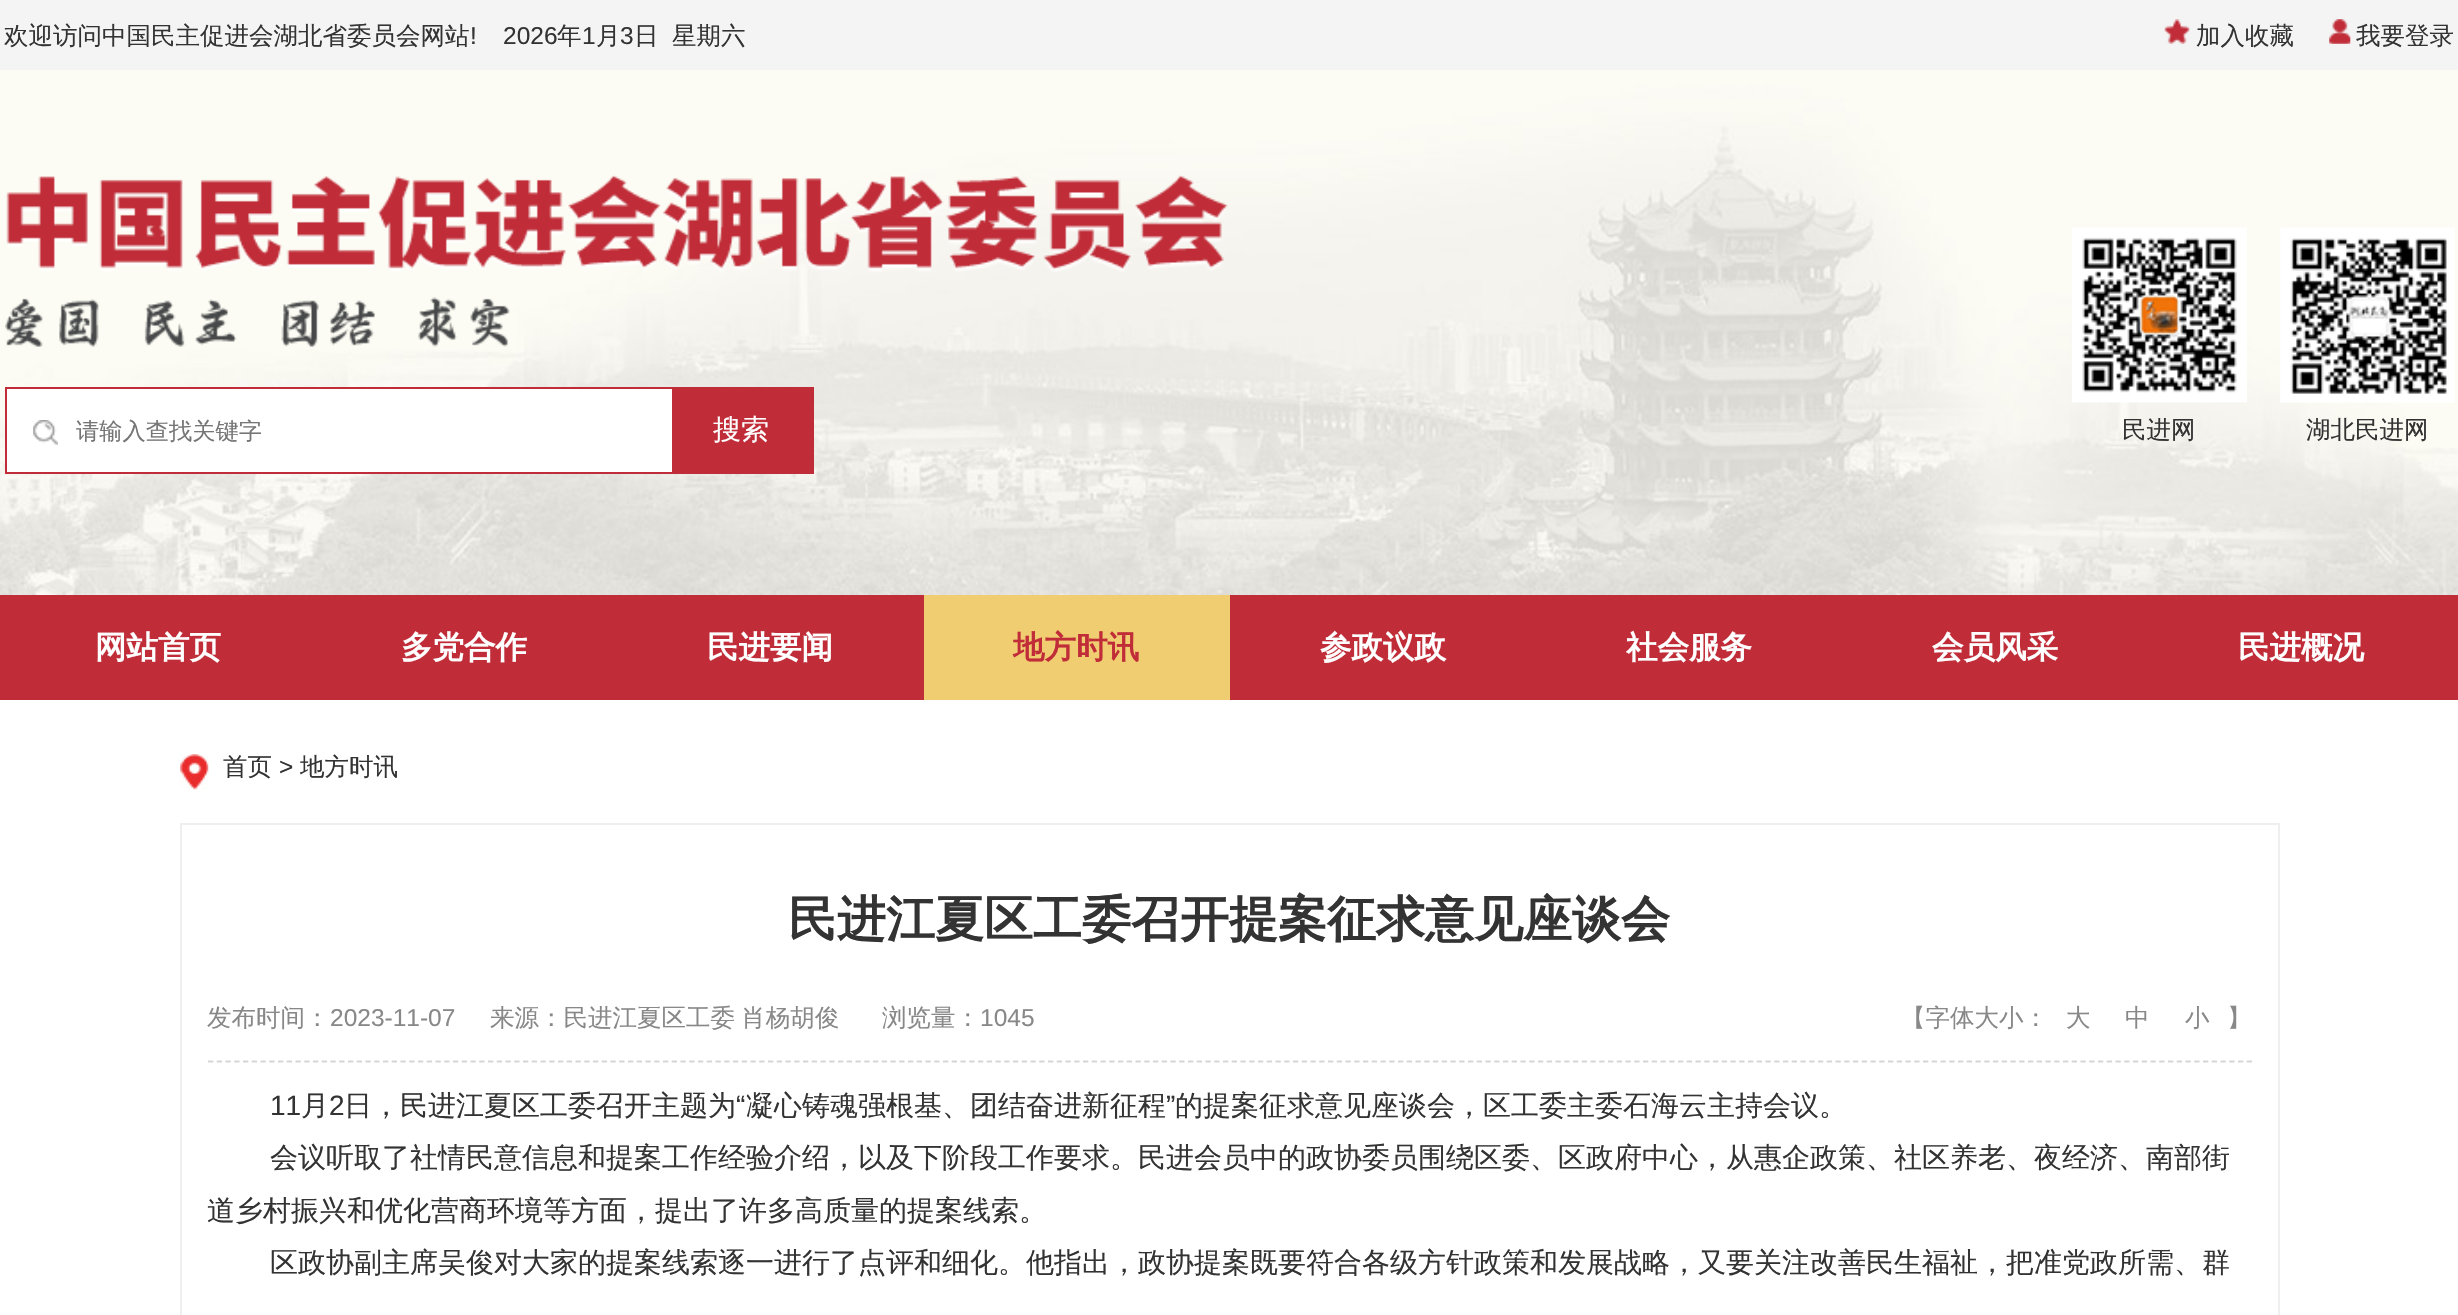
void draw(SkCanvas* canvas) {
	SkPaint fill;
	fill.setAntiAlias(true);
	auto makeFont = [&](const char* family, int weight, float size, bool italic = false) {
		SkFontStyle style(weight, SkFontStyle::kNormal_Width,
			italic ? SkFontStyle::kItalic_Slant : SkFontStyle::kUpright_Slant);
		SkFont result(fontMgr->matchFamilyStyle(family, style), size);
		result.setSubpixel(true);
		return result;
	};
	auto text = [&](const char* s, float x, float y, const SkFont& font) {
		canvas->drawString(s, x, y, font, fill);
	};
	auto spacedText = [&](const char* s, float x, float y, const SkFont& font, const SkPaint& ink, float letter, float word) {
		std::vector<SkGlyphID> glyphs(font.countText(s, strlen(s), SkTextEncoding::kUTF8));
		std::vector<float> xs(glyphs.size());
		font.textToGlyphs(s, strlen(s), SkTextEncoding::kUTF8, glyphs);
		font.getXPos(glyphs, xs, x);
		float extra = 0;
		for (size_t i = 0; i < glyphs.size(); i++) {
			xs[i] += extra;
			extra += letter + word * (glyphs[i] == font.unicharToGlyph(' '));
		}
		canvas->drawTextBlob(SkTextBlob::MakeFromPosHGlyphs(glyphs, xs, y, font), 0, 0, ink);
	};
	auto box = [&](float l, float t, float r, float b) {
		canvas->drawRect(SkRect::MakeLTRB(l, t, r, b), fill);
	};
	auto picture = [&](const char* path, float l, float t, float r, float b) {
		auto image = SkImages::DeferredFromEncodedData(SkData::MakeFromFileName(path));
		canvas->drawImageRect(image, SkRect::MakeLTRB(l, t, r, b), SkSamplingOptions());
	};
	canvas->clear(0xFFFFFFFF);
	fill.setColor(0xFFF4F4F4);
	box(0, 0, 2458, 70);
	picture("image0.png", 2164, 19, 2190, 44);
	picture("image1.png", 2329, 19, 2351, 44);
	picture("image2.png", 0, 70, 2458, 595);
	picture("image3.png", 6, 175, 1228, 272);
	picture("image4.png", 5, 297, 510, 347);
	fill.setColor(0xFFFFFFFF);
	box(7, 389, 672, 472);
	fill.setStyle(SkPaint::kStroke_Style);
	fill.setStrokeWidth(2);
	fill.setColor(0xFFC02C38);
	canvas->drawRect(SkRect::MakeLTRB(6, 388, 813, 473), fill);
	picture("image5.png", 33, 420, 58, 445);
	fill.setStyle(SkPaint::kFill_Style);
	box(672, 389, 812, 472);
	picture("image6.png", 2072, 227, 2247, 403);
	picture("image7.png", 2280, 227, 2455, 403);
	box(0, 595, 2458, 700);
	fill.setColor(0xFFF0CD71);
	box(924, 595, 1230, 700);
	picture("image8.png", 180, 754, 209, 790);
	fill.setStyle(SkPaint::kStroke_Style);
	fill.setColor(0xFFEFEFEF);
	canvas->drawRect(SkRect::MakeLTRB(181, 824, 2279, 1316), fill);
	fill.setStrokeWidth(1.8f);
	fill.setColor(0xFFD5D5D5);
	fill.setPathEffect(SkDashPathEffect::Make({{5.25f, 3.5f}}, 0));
	canvas->drawPath(SkPathBuilder().moveTo(208, 1061.5f).lineTo(2252, 1061.5f).detach(), fill);
	fill.setPathEffect(nullptr);
	auto font1 = makeFont("WenQuanYi Zen Hei", 500, 24.5f);
	fill.setStyle(SkPaint::kFill_Style);
	fill.setColor(0xFF333333);
	text("欢迎访问中国民主促进会湖北省委员会网站", 4, 44, font1);
	auto font2 = makeFont("Liberation Sans", 400, 24.5f);
	text("!", 470, 44, font2);
	text("2026", 503, 44, font2);
	text("年", 557, 44, font1);
	text("1", 582, 44, font2);
	text("月", 596, 44, font1);
	text("3", 620, 44, font2);
	text("日", 634, 44, font1);
	text("星期六", 672, 44, font1);
	text("加入收藏", 2196, 44, font1);
	text("我要登录", 2356, 44, font1);
	auto font3 = makeFont("WenQuanYi Zen Hei", 500, 23.25f);
	fill.setColor(0xFF757575);
	text("请输入查找关键字", 76, 439, font3);
	auto font4 = makeFont("WenQuanYi Zen Hei", 500, 28);
	fill.setColor(0xFFFFFFFF);
	text("搜索", 713, 439, font4);
	fill.setColor(0xFF333333);
	text("民进网", 2122, 438, font1);
	text("湖北民进网", 2306, 438, font1);
	auto font5 = makeFont("WenQuanYi Zen Hei", 700, 31.5f);
	fill.setColor(0xFFFFFFFF);
	text("网站首页", 95, 658, font5);
	text("多党合作", 401, 658, font5);
	text("民进要闻", 707, 658, font5);
	fill.setColor(0xFFC02C38);
	text("地方时讯", 1013, 658, font5);
	fill.setColor(0xFFFFFFFF);
	text("参政议政", 1320, 658, font5);
	text("社会服务", 1626, 658, font5);
	text("会员风采", 1932, 658, font5);
	text("民进概况", 2238, 658, font5);
	fill.setColor(0xFF333333);
	text("首页", 223, 775, font1);
	text(">", 279, 775, font2);
	text("地方时讯", 300, 775, font1);
	auto font6 = makeFont("WenQuanYi Zen Hei", 700, 49);
	text("民进江夏区工委召开提案征求意见座谈会", 788, 936, font6);
	fill.setColor(0xFF888888);
	text("发布时间：", 207, 1026, font1);
	text("2023-11-07", 330, 1026, font2);
	spacedText("来源：民进江夏区工委 肖杨胡俊", 490, 1026, font1, fill, 0, -1);
	text("浏览量：", 882, 1026, font1);
	text("1045", 980, 1026, font2);
	text("【字体大小：", 1901, 1026, font1);
	text("大", 2066, 1026, font1);
	text("中", 2125, 1026, font1);
	text("小", 2185, 1026, font1);
	text("】", 2227, 1026, font1);
	auto font7 = makeFont("Liberation Sans", 400, 28);
	fill.setColor(0xFF333333);
	text("11", 270, 1115, font7);
	text("月", 301, 1115, font4);
	text("2", 329, 1115, font7);
	text("日，民进江夏区工委召开主题为", 344, 1115, font4);
	text("“", 736, 1115, font7);
	text("凝心铸魂强根基、团结奋进新征程", 746, 1115, font4);
	text("”", 1166, 1115, font7);
	text("的提案征求意见座谈会，区工委主委石海云主持会议。", 1175, 1115, font4);
	text("会议听取了社情民意信息和提案工作经验介绍，以及下阶段工作要求。民进会员中的政协委员围绕区委、区政府中心，从惠企政策、社区养老、夜经济、南部街", 270, 1167, font4);
	text("道乡村振兴和优化营商环境等方面，提出了许多高质量的提案线索。", 207, 1220, font4);
	text("区政协副主席吴俊对大家的提案线索逐一进行了点评和细化。他指出，政协提案既要符合各级方针政策和发展战略，又要关注改善民生福祉，把准党政所需、群", 270, 1272, font4);
}
